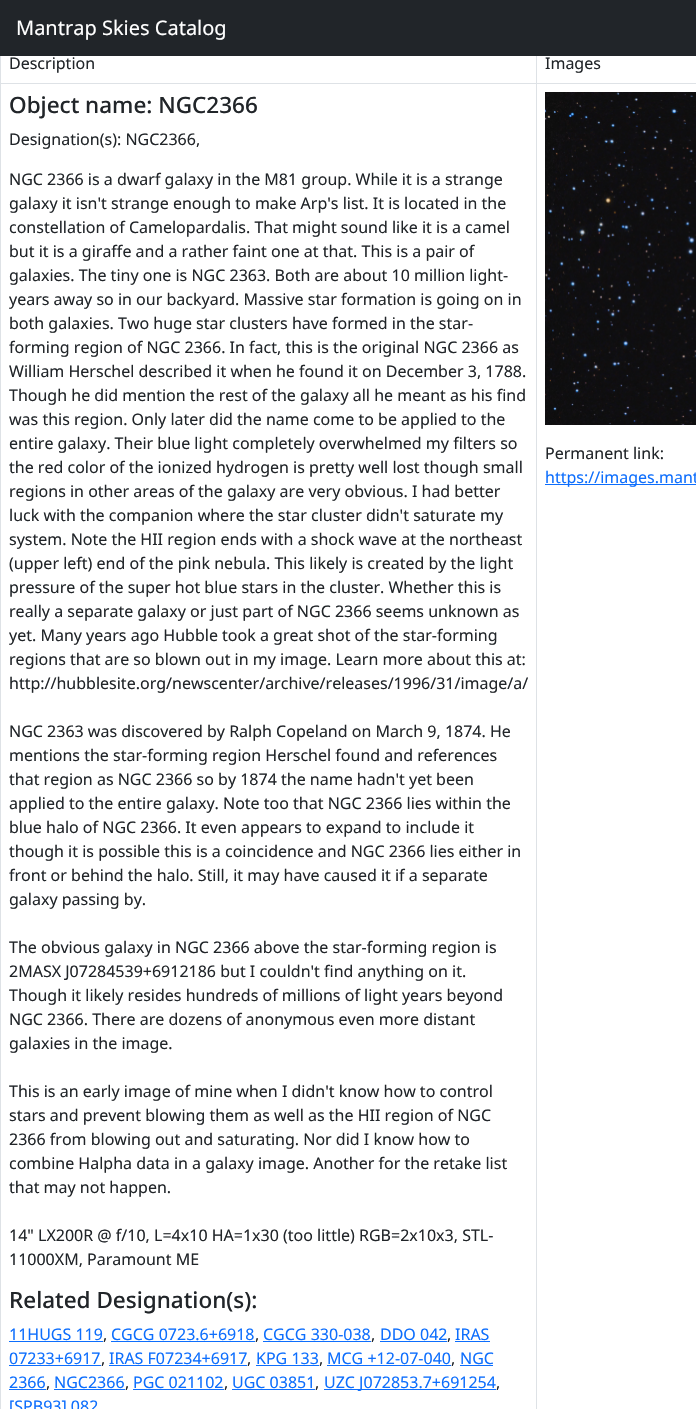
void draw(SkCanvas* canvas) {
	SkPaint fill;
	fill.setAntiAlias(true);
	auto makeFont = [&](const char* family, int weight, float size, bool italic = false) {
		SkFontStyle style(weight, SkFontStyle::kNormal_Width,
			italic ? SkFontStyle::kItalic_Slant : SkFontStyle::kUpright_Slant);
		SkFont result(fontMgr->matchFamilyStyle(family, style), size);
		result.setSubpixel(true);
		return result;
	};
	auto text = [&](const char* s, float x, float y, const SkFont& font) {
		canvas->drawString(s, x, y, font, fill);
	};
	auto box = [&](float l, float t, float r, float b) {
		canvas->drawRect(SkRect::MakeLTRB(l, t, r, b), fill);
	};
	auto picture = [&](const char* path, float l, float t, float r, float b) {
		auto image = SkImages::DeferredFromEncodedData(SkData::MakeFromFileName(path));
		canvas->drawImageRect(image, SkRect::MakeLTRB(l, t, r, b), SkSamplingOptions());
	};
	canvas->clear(0xFFFFFFFF);
	fill.setColor(0xFF212529);
	box(0, 0, 696, 56);
	fill.setColor(0xFFDEE2E6);
	box(0, 83, 696, 84);
	box(0, 56, 1, 1409);
	fill.setColor(0xFF0D6EFD);
	box(9, 1341, 103, 1342);
	box(111, 1341, 255, 1342);
	box(263, 1341, 371, 1342);
	box(380, 1341, 447, 1342);
	box(455, 1341, 490, 1342);
	box(9, 1365, 101, 1366);
	box(109, 1365, 247, 1366);
	box(256, 1365, 319, 1366);
	box(327, 1365, 451, 1366);
	box(460, 1365, 493, 1366);
	box(9, 1389, 46, 1390);
	box(54, 1389, 125, 1390);
	box(133, 1389, 224, 1390);
	box(232, 1389, 315, 1390);
	box(324, 1389, 496, 1390);
	fill.setColor(0xFFDEE2E6);
	box(536, 56, 537, 1409);
	picture("image0.png", 545, 92, 696, 425);
	fill.setColor(0xFF0D6EFD);
	box(545, 484, 696, 485);
	auto font1 = makeFont("Noto Sans", 400, 20);
	fill.setColor(0xFFFFFFFF);
	text("Mantrap Skies Catalog", 16, 35, font1);
	auto font2 = makeFont("Noto Sans", 400, 16);
	fill.setColor(0xFF212529);
	text("Description", 9, 69, font2);
	text("Images", 545, 69, font2);
	auto font3 = makeFont("Noto Sans", 500, 22.5f);
	text("Object name: NGC2366", 9, 113, font3);
	text("Designation(s): NGC2366,", 9, 145, font2);
	text("NGC 2366 is a dwarf galaxy in the M81 group. While it is a strange", 9, 185, font2);
	text("galaxy it isn't strange enough to make Arp's list. It is located in the", 9, 209, font2);
	text("constellation of Camelopardalis. That might sound like it is a camel", 9, 233, font2);
	text("but it is a giraffe and a rather faint one at that. This is a pair of", 9, 257, font2);
	text("galaxies. The tiny one is NGC 2363. Both are about 10 million light-", 9, 281, font2);
	text("years away so in our backyard. Massive star formation is going on in", 9, 305, font2);
	text("both galaxies. Two huge star clusters have formed in the star-", 9, 329, font2);
	text("forming region of NGC 2366. In fact, this is the original NGC 2366 as", 9, 353, font2);
	text("William Herschel described it when he found it on December 3, 1788.", 9, 377, font2);
	text("Though he did mention the rest of the galaxy all he meant as his find", 9, 401, font2);
	text("was this region. Only later did the name come to be applied to the", 9, 425, font2);
	text("entire galaxy. Their blue light completely overwhelmed my filters so", 9, 449, font2);
	text("the red color of the ionized hydrogen is pretty well lost though small", 9, 473, font2);
	text("regions in other areas of the galaxy are very obvious. I had better", 9, 497, font2);
	text("luck with the companion where the star cluster didn't saturate my", 9, 521, font2);
	text("system. Note the HII region ends with a shock wave at the northeast", 9, 545, font2);
	text("(upper left) end of the pink nebula. This likely is created by the light", 9, 569, font2);
	text("pressure of the super hot blue stars in the cluster. Whether this is", 9, 593, font2);
	text("really a separate galaxy or just part of NGC 2366 seems unknown as", 9, 617, font2);
	text("yet. Many years ago Hubble took a great shot of the star-forming", 9, 641, font2);
	text("regions that are so blown out in my image. Learn more about this at:", 9, 665, font2);
	text("http://hubblesite.org/newscenter/archive/releases/1996/31/image/a/", 9, 689, font2);
	text("NGC 2363 was discovered by Ralph Copeland on March 9, 1874. He", 9, 737, font2);
	text("mentions the star-forming region Herschel found and references", 9, 761, font2);
	text("that region as NGC 2366 so by 1874 the name hadn't yet been", 9, 785, font2);
	text("applied to the entire galaxy. Note too that NGC 2366 lies within the", 9, 809, font2);
	text("blue halo of NGC 2366. It even appears to expand to include it", 9, 833, font2);
	text("though it is possible this is a coincidence and NGC 2366 lies either in", 9, 857, font2);
	text("front or behind the halo. Still, it may have caused it if a separate", 9, 881, font2);
	text("galaxy passing by.", 9, 905, font2);
	text("The obvious galaxy in NGC 2366 above the star-forming region is", 9, 953, font2);
	text("2MASX J07284539+6912186 but I couldn't find anything on it.", 9, 977, font2);
	text("Though it likely resides hundreds of millions of light years beyond", 9, 1001, font2);
	text("NGC 2366. There are dozens of anonymous even more distant", 9, 1025, font2);
	text("galaxies in the image.", 9, 1049, font2);
	text("This is an early image of mine when I didn't know how to control", 9, 1097, font2);
	text("stars and prevent blowing them as well as the HII region of NGC", 9, 1121, font2);
	text("2366 from blowing out and saturating. Nor did I know how to", 9, 1145, font2);
	text("combine Halpha data in a galaxy image. Another for the retake list", 9, 1169, font2);
	text("that may not happen.", 9, 1193, font2);
	text("14\" LX200R @ f/10, L=4x10 HA=1x30 (too little) RGB=2x10x3, STL-", 9, 1241, font2);
	text("11000XM, Paramount ME", 9, 1265, font2);
	text("Related Designation(s):", 9, 1308, font3);
	fill.setColor(0xFF0D6EFD);
	text("11HUGS 119", 9, 1340, font2);
	fill.setColor(0xFF212529);
	text(",", 103, 1340, font2);
	fill.setColor(0xFF0D6EFD);
	text("CGCG 0723.6+6918", 111, 1340, font2);
	fill.setColor(0xFF212529);
	text(",", 255, 1340, font2);
	fill.setColor(0xFF0D6EFD);
	text("CGCG 330-038", 263, 1340, font2);
	fill.setColor(0xFF212529);
	text(",", 371, 1340, font2);
	fill.setColor(0xFF0D6EFD);
	text("DDO 042", 380, 1340, font2);
	fill.setColor(0xFF212529);
	text(",", 447, 1340, font2);
	fill.setColor(0xFF0D6EFD);
	text("IRAS", 455, 1340, font2);
	text("07233+6917", 9, 1364, font2);
	fill.setColor(0xFF212529);
	text(",", 101, 1364, font2);
	fill.setColor(0xFF0D6EFD);
	text("IRAS F07234+6917", 109, 1364, font2);
	fill.setColor(0xFF212529);
	text(",", 247, 1364, font2);
	fill.setColor(0xFF0D6EFD);
	text("KPG 133", 256, 1364, font2);
	fill.setColor(0xFF212529);
	text(",", 319, 1364, font2);
	fill.setColor(0xFF0D6EFD);
	text("MCG +12-07-040", 327, 1364, font2);
	fill.setColor(0xFF212529);
	text(",", 451, 1364, font2);
	fill.setColor(0xFF0D6EFD);
	text("NGC", 460, 1364, font2);
	text("2366", 9, 1388, font2);
	fill.setColor(0xFF212529);
	text(",", 46, 1388, font2);
	fill.setColor(0xFF0D6EFD);
	text("NGC2366", 54, 1388, font2);
	fill.setColor(0xFF212529);
	text(",", 125, 1388, font2);
	fill.setColor(0xFF0D6EFD);
	text("PGC 021102", 133, 1388, font2);
	fill.setColor(0xFF212529);
	text(",", 224, 1388, font2);
	fill.setColor(0xFF0D6EFD);
	text("UGC 03851", 232, 1388, font2);
	fill.setColor(0xFF212529);
	text(",", 315, 1388, font2);
	fill.setColor(0xFF0D6EFD);
	text("UZC J072853.7+691254", 324, 1388, font2);
	fill.setColor(0xFF212529);
	text(",", 496, 1388, font2);
	fill.setColor(0xFF0D6EFD);
	text("[SPB93] 082", 9, 1412, font2);
	fill.setColor(0xFF212529);
	text("Permanent link:", 545, 459, font2);
	fill.setColor(0xFF0D6EFD);
	text("https://images.mant", 545, 483, font2);
}
